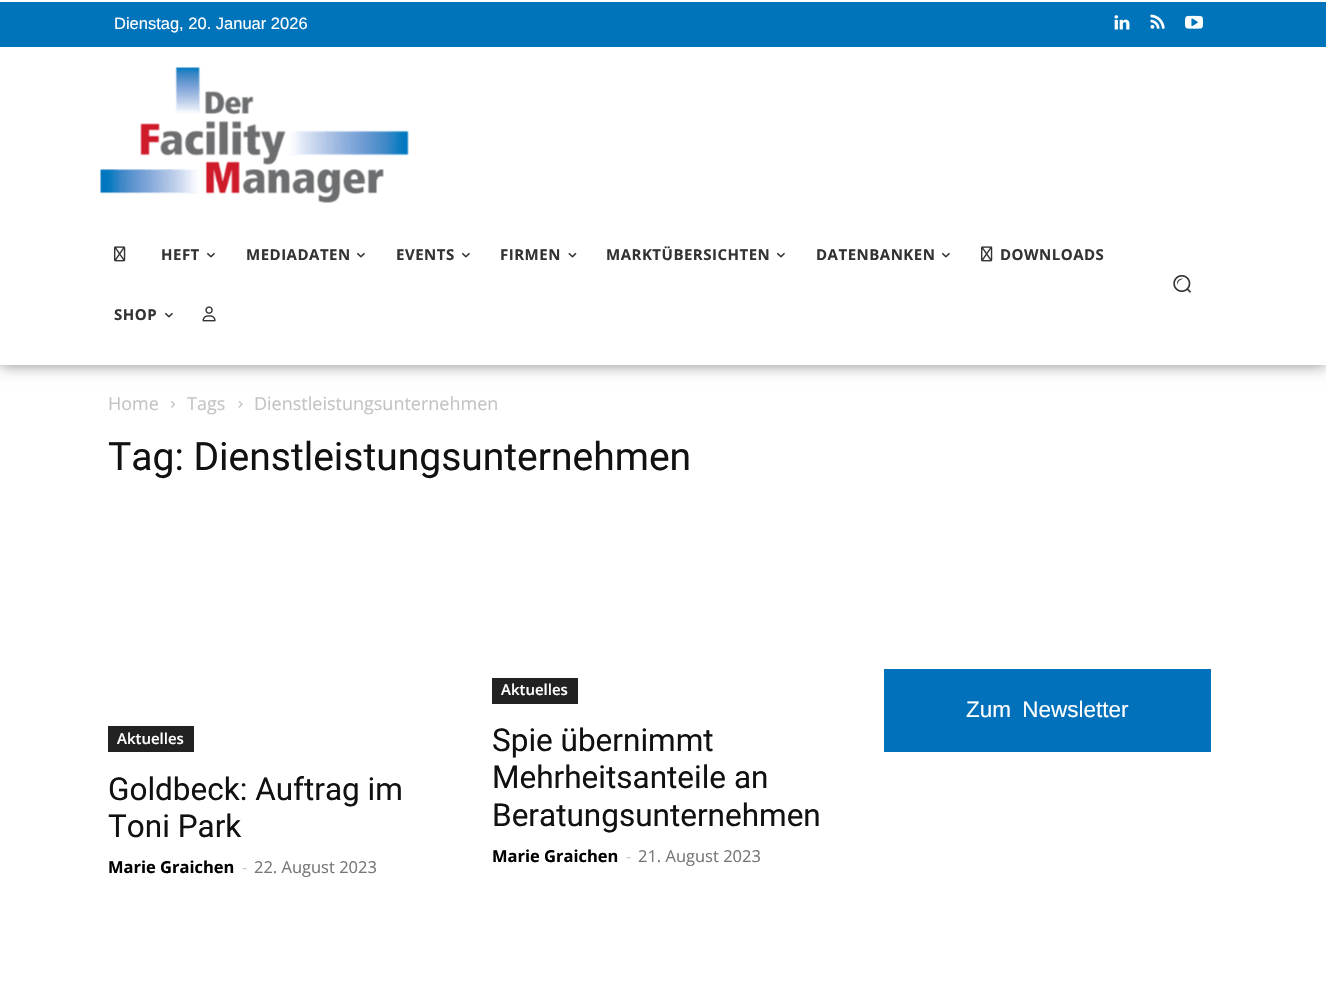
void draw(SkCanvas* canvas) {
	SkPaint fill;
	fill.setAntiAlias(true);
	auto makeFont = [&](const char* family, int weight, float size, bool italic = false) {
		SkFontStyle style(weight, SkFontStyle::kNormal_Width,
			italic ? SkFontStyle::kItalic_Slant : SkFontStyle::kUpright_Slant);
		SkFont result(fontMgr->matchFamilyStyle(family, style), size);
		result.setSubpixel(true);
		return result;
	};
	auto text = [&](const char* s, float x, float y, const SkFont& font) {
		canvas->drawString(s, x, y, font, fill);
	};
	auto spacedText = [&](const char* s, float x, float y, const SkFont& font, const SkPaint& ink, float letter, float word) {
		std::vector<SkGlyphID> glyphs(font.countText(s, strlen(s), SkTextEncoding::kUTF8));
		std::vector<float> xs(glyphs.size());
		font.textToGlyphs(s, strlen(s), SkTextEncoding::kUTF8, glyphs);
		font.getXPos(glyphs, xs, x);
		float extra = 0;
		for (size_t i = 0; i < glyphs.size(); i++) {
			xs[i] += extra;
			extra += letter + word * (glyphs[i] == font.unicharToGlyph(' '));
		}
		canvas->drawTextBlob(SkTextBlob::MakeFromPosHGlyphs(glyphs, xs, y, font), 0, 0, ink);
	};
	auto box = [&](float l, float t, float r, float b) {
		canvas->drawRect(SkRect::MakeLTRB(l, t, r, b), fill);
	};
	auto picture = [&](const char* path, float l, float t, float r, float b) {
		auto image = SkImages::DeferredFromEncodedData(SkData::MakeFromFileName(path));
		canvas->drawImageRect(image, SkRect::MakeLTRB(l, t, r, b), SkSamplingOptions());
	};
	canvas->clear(0xFFFFFFFF);
	fill.setColor(0xFF888888);
	fill.setMaskFilter(SkMaskFilter::MakeBlur(kNormal_SkBlurStyle, 7.5f));
	canvas->drawRect(SkRect::MakeLTRB(0, 0, 1326, 365), fill);
	fill.setMaskFilter(nullptr);
	fill.setColor(0xFFFFFFFF);
	box(0, 0, 1326, 365);
	fill.setColor(0xFF0074BB);
	box(0, 2, 1326, 47);
	picture("image0.png", 1114, 15, 1130, 30);
	picture("image1.png", 1150, 14, 1165, 29);
	picture("image2.png", 1185, 15, 1203, 29);
	picture("image3.png", 100, 67, 409, 203);
	picture("image4.png", 114, 246, 126, 262);
	picture("image5.png", 207, 252, 215, 258);
	picture("image5.png", 357, 252, 365, 258);
	picture("image5.png", 462, 252, 470, 258);
	picture("image6.png", 568, 252, 577, 258);
	picture("image5.png", 777, 252, 785, 258);
	picture("image5.png", 942, 252, 950, 258);
	picture("image4.png", 981, 246, 993, 262);
	picture("image5.png", 165, 312, 173, 318);
	picture("image7.png", 202, 306, 216, 322);
	picture("image8.png", 1173, 275, 1192, 293);
	picture("image9.png", 171, 401, 175, 408);
	picture("image10.png", 238, 401, 243, 408);
	fill.setColor(0xFF222222);
	box(108, 726, 194, 752);
	box(492, 678, 578, 704);
	fill.setColor(0xFF0071BA);
	box(884, 669, 1211, 752);
	auto font1 = makeFont("Liberation Sans", 400, 16.5f);
	fill.setColor(0xFFFFFFFF);
	text("Dienstag, 20. Januar 2026", 114, 29, font1);
	auto font2 = makeFont("Open Sans", 700, 15);
	fill.setColor(0xFF333333);
	spacedText("HEFT", 161, 260, font2, fill, 0.5f, 0);
	spacedText("MEDIADATEN", 246, 260, font2, fill, 0.5f, 0);
	spacedText("EVENTS", 396, 260, font2, fill, 0.5f, 0);
	spacedText("FIRMEN", 500, 260, font2, fill, 0.5f, 0);
	spacedText("MARKTÜBERSICHTEN", 606, 260, font2, fill, 0.5f, 0);
	spacedText("DATENBANKEN", 816, 260, font2, fill, 0.5f, 0);
	spacedText("DOWNLOADS", 1000, 260, font2, fill, 0.5f, 0);
	spacedText("SHOP", 114, 320, font2, fill, 0.5f, 0);
	auto font3 = makeFont("Open Sans", 400, 18);
	fill.setColor(0xFFC3C3C3);
	text("Home", 108, 410, font3);
	text("Tags", 187, 410, font3);
	text("Dienstleistungsunternehmen", 254, 410, font3);
	auto font4 = makeFont("Roboto", 400, 39);
	fill.setColor(0xFF111111);
	text("Tag: Dienstleistungsunternehmen", 108, 470, font4);
	auto font5 = makeFont("Open Sans", 600, 15);
	fill.setColor(0xFFFFFFFF);
	text("Aktuelles", 117, 744, font5);
	auto font6 = makeFont("Roboto", 400, 31.5f);
	fill.setColor(0xFF111111);
	text("Goldbeck: Auftrag im", 108, 800, font6);
	text("Toni Park", 108, 837, font6);
	auto font7 = makeFont("Open Sans", 700, 16.5f);
	fill.setColor(0xFF000000);
	text("Marie Graichen", 108, 873, font7);
	auto font8 = makeFont("Open Sans", 400, 16.5f);
	fill.setColor(0xFFCCCCCC);
	text("-", 242, 873, font8);
	fill.setColor(0xFF767676);
	text("22. August 2023", 254, 873, font8);
	fill.setColor(0xFFFFFFFF);
	text("Aktuelles", 501, 695, font5);
	fill.setColor(0xFF111111);
	text("Spie übernimmt", 492, 751, font6);
	text("Mehrheitsanteile an", 492, 788, font6);
	text("Beratungsunternehmen", 492, 826, font6);
	fill.setColor(0xFF000000);
	text("Marie Graichen", 492, 862, font7);
	fill.setColor(0xFFCCCCCC);
	text("-", 626, 862, font8);
	fill.setColor(0xFF767676);
	text("21. August 2023", 638, 862, font8);
	auto font9 = makeFont("Liberation Sans", 400, 22.5f);
	fill.setColor(0xFFFFFFFF);
	spacedText("Zum Newsletter", 966, 717, font9, fill, 0, 5);
}
